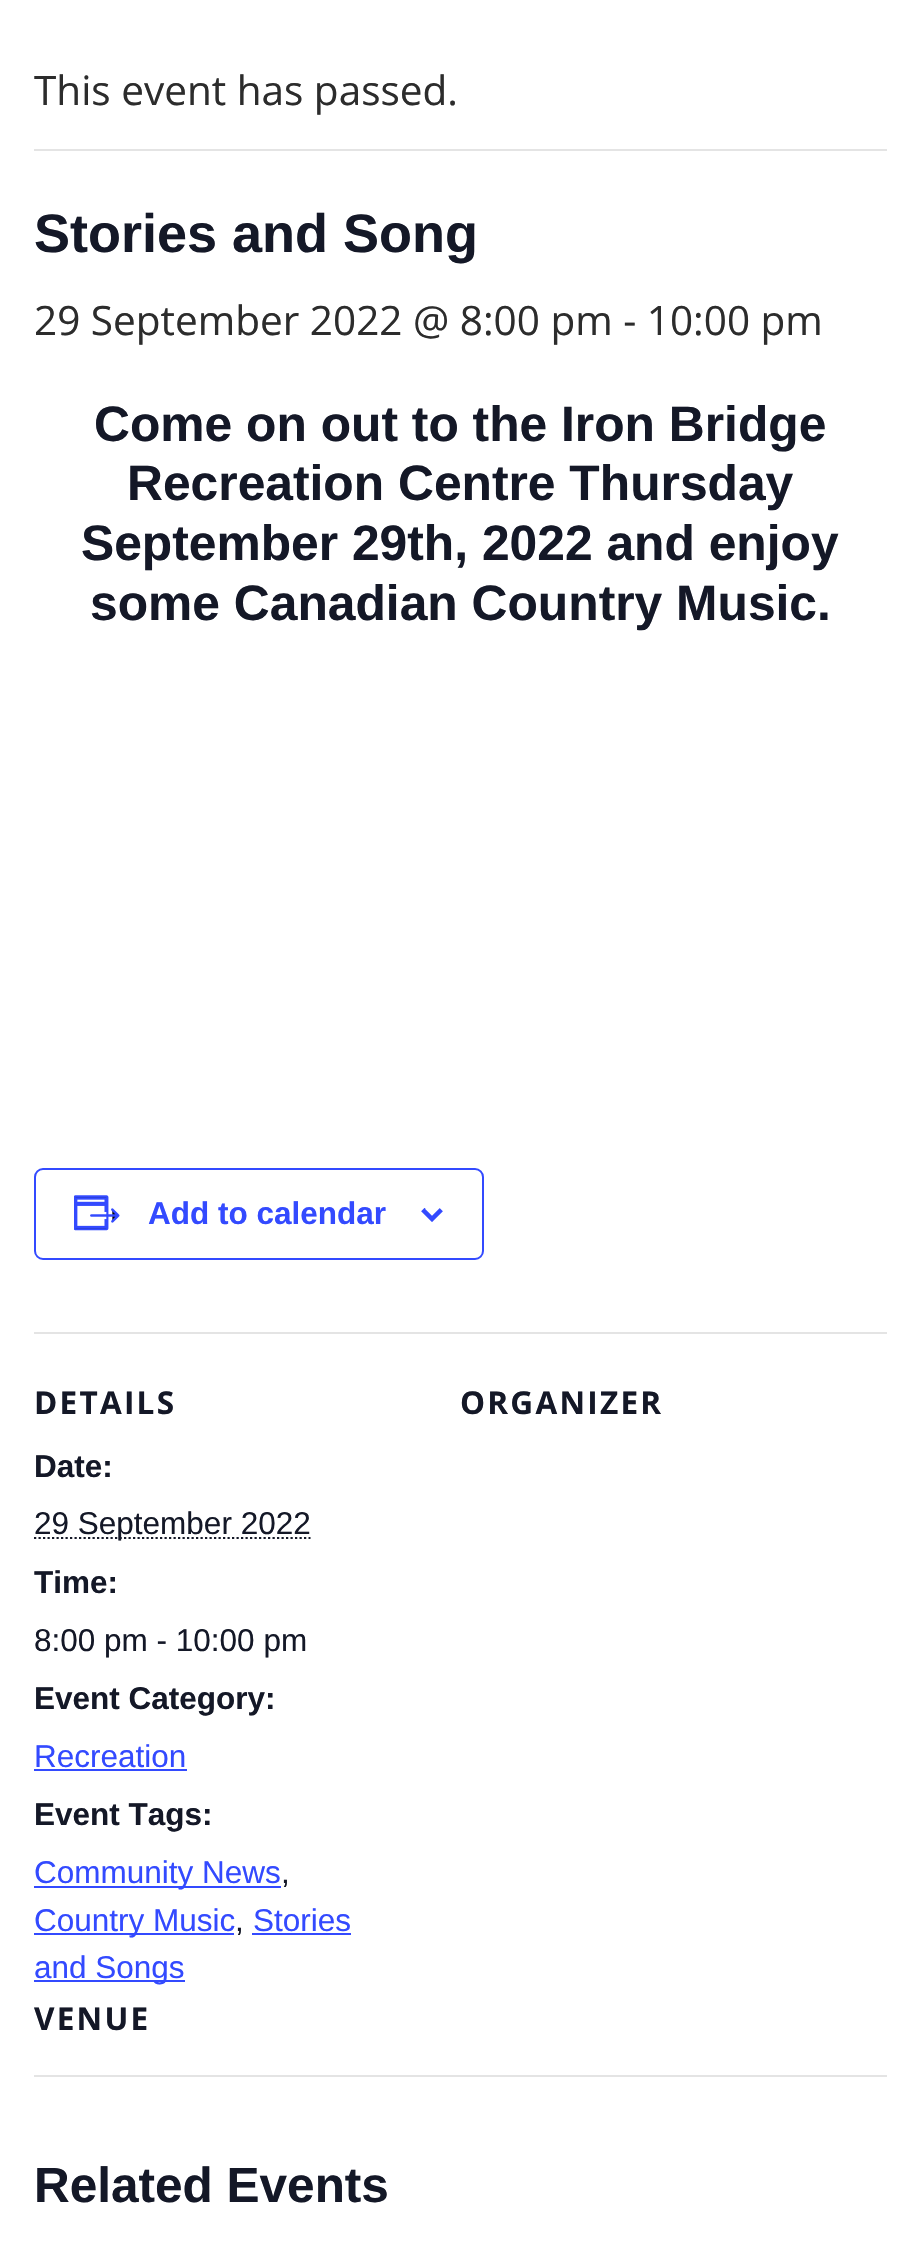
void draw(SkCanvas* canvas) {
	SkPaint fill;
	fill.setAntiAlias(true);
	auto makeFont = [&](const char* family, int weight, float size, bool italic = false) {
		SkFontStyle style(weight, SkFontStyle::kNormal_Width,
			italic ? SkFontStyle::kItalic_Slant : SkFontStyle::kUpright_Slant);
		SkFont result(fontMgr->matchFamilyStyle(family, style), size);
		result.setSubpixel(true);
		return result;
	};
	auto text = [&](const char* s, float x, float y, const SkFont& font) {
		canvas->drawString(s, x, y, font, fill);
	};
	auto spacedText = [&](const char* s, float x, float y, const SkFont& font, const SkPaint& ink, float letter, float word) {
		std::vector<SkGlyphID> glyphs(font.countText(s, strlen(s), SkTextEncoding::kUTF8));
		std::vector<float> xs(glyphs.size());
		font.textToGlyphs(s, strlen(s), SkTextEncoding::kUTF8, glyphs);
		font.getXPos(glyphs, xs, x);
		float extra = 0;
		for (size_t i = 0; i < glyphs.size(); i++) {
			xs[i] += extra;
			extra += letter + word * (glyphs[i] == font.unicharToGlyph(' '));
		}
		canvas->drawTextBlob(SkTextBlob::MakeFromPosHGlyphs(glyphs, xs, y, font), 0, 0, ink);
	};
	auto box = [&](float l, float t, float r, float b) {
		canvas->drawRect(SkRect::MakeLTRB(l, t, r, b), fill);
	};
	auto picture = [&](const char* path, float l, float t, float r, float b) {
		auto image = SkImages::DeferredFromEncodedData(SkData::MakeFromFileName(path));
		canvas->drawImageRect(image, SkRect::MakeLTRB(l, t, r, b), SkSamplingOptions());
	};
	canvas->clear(0xFFFFFFFF);
	fill.setColor(0xFFE4E4E4);
	box(34, 149, 887, 151);
	fill.setStyle(SkPaint::kStroke_Style);
	fill.setStrokeWidth(2);
	fill.setColor(0xFF334AFF);
	canvas->drawRoundRect(SkRect::MakeLTRB(35, 1169, 483, 1259), 8, 8, fill);
	picture("image0.png", 74, 1195, 120, 1231);
	picture("image1.png", 421, 1208, 443, 1222);
	fill.setStyle(SkPaint::kFill_Style);
	fill.setColor(0xFFE4E4E4);
	box(34, 1332, 887, 1334);
	fill.setStyle(SkPaint::kStroke_Style);
	fill.setStrokeWidth(2.2f);
	fill.setColor(0xFF141827);
	fill.setPathEffect(SkDashPathEffect::Make({{2.25f, 2.25f}}, 0));
	canvas->drawPath(SkPathBuilder().moveTo(34, 1538).lineTo(310.5f, 1538).detach(), fill);
	fill.setPathEffect(nullptr);
	fill.setStyle(SkPaint::kFill_Style);
	fill.setColor(0xFF334AFF);
	box(34, 1769, 187, 1771);
	box(34, 1886, 281, 1888);
	box(34, 1933, 234, 1935);
	box(252, 1933, 351, 1935);
	box(34, 1980, 185, 1982);
	fill.setColor(0xFFE4E4E4);
	box(34, 2075, 887, 2077);
	auto font1 = makeFont("Open Sans", 400, 40.5f);
	fill.setColor(0xFF2C2C2C);
	text("This event has passed.", 34, 105, font1);
	auto font2 = makeFont("Liberation Sans", 700, 54);
	fill.setColor(0xFF141827);
	text("Stories and Song", 34, 252, font2);
	fill.setColor(0xFF2C2C2C);
	text("29 September 2022 @ 8:00 pm - 10:00 pm", 34, 335, font1);
	auto font3 = makeFont("Liberation Sans", 700, 49.75f);
	fill.setColor(0xFF141827);
	text("Come on out to the Iron Bridge", 94, 441, font3);
	text("Recreation Centre Thursday", 127, 500, font3);
	text("September 29th, 2022 and enjoy", 81, 560, font3);
	text("some Canadian Country Music.", 90, 620, font3);
	auto font4 = makeFont("Liberation Sans", 700, 31.5f);
	fill.setColor(0xFF334AFF);
	text("Add to calendar", 148, 1224, font4);
	auto font5 = makeFont("Open Sans", 700, 31.5f);
	fill.setColor(0xFF141827);
	spacedText("DETAILS", 34, 1414, font5, fill, 2.25f, 0);
	text("Date:", 34, 1477, font4);
	auto font6 = makeFont("Liberation Sans", 400, 31.5f);
	text("29 September 2022", 34, 1534, font6);
	text("Time:", 34, 1593, font4);
	text("8:00 pm - 10:00 pm", 34, 1651, font6);
	text("Event Category:", 34, 1709, font4);
	fill.setColor(0xFF334AFF);
	text("Recreation", 34, 1767, font6);
	fill.setColor(0xFF141827);
	text("Event Tags:", 34, 1825, font4);
	fill.setColor(0xFF334AFF);
	text("Community News", 34, 1883, font6);
	fill.setColor(0xFF141827);
	text(",", 281, 1883, font6);
	fill.setColor(0xFF334AFF);
	text("Country Music", 34, 1931, font6);
	fill.setColor(0xFF141827);
	text(",", 235, 1931, font6);
	fill.setColor(0xFF334AFF);
	text("Stories", 253, 1931, font6);
	text("and Songs", 34, 1978, font6);
	fill.setColor(0xFF141827);
	spacedText("ORGANIZER", 460, 1414, font5, fill, 2.25f, 0);
	spacedText("VENUE", 34, 2030, font5, fill, 2.25f, 0);
	auto font7 = makeFont("Liberation Sans", 700, 49.5f);
	text("Related Events", 34, 2202, font7);
}
